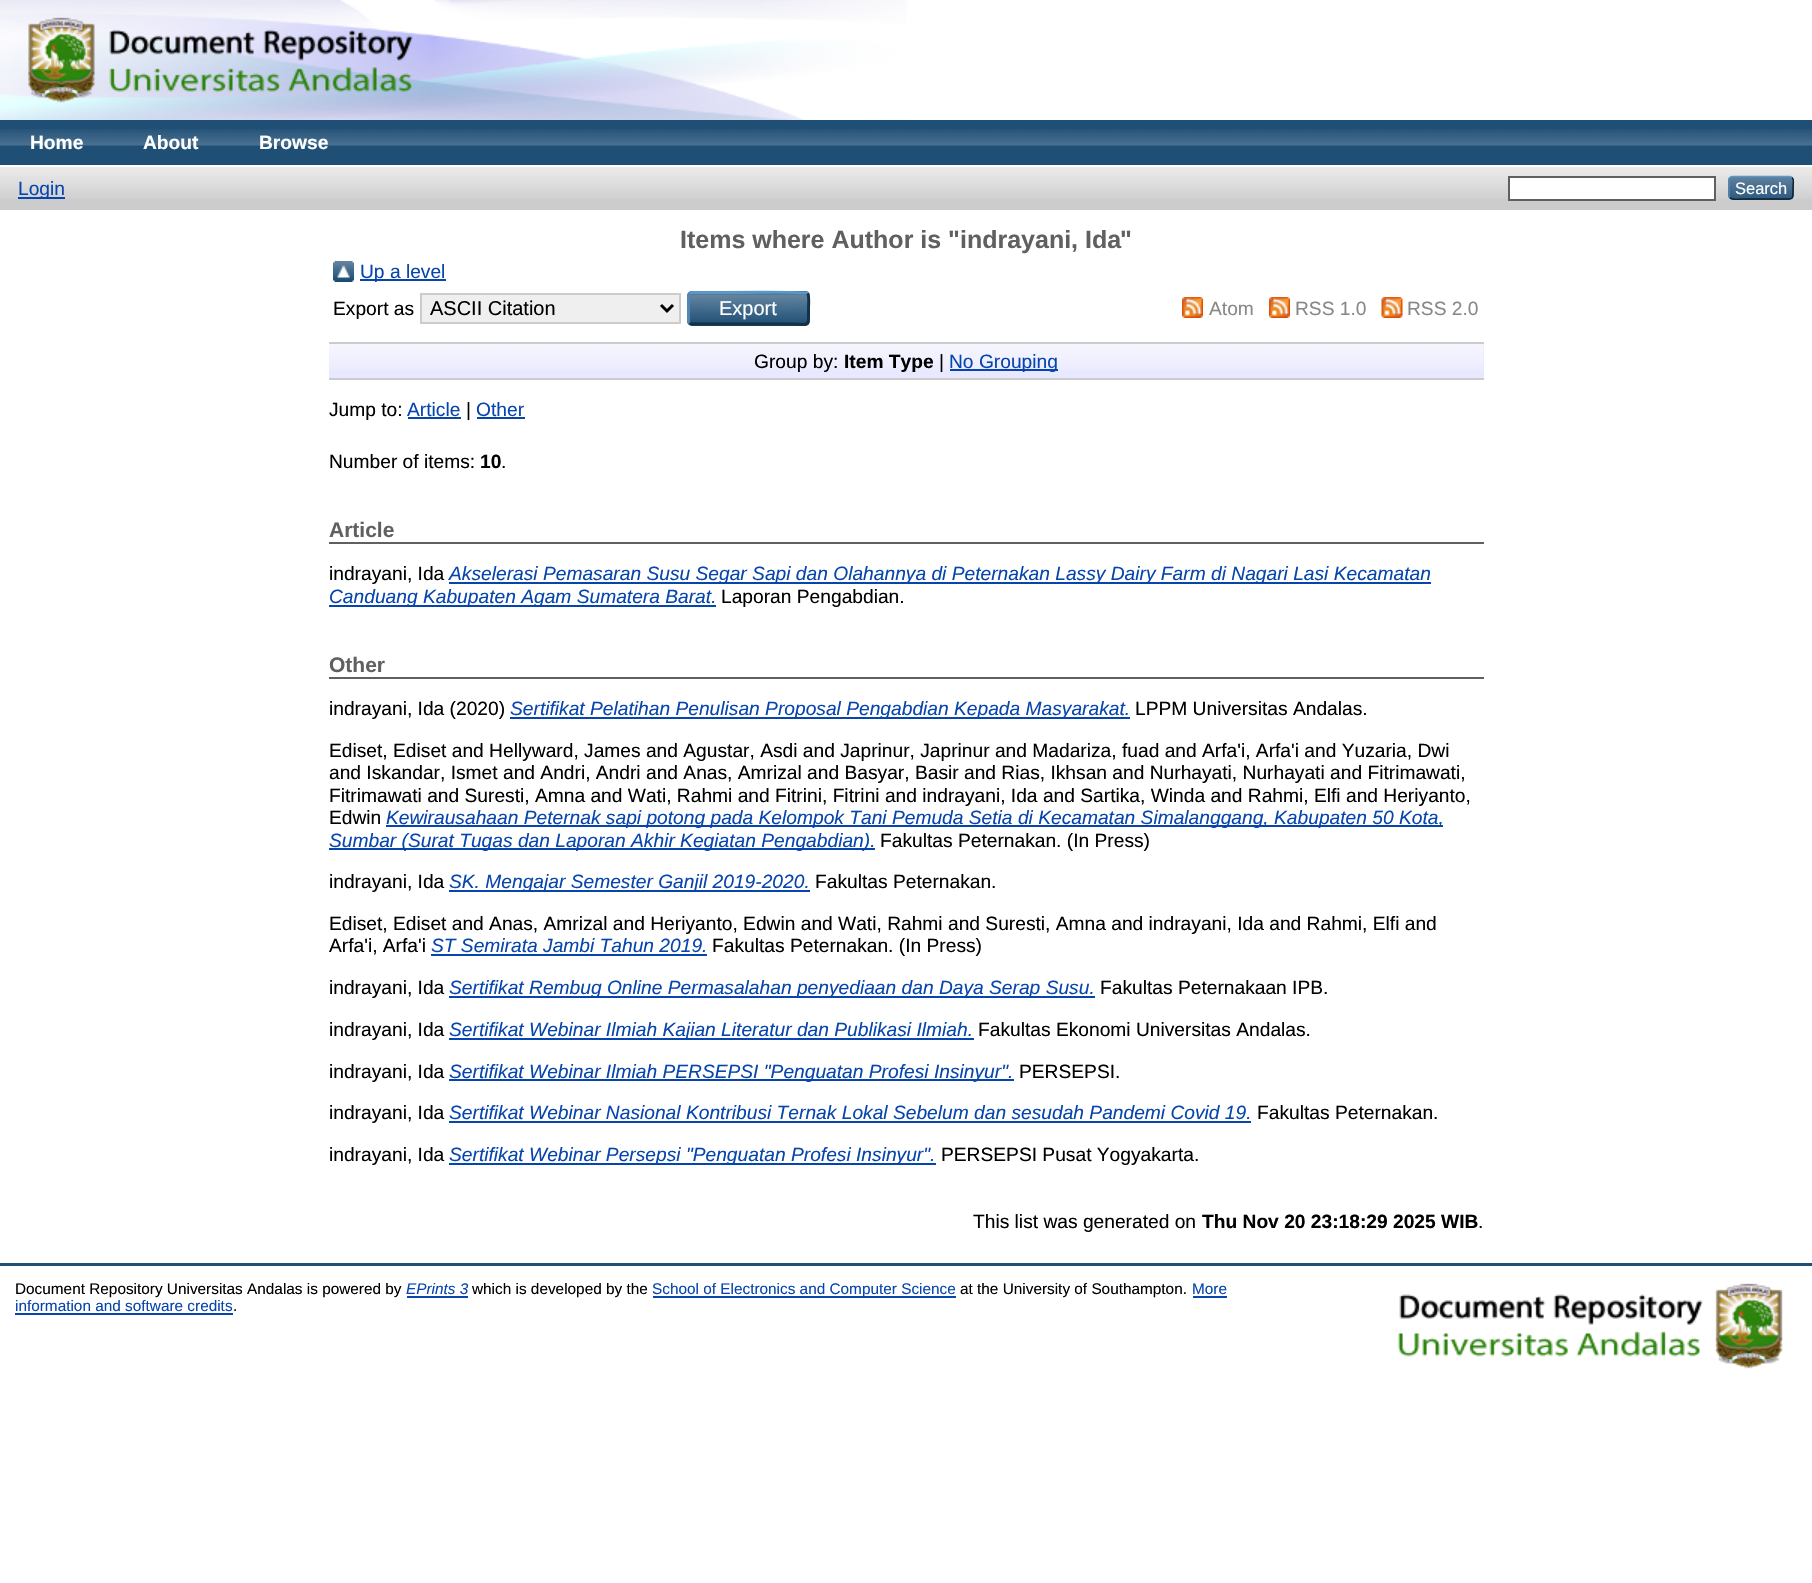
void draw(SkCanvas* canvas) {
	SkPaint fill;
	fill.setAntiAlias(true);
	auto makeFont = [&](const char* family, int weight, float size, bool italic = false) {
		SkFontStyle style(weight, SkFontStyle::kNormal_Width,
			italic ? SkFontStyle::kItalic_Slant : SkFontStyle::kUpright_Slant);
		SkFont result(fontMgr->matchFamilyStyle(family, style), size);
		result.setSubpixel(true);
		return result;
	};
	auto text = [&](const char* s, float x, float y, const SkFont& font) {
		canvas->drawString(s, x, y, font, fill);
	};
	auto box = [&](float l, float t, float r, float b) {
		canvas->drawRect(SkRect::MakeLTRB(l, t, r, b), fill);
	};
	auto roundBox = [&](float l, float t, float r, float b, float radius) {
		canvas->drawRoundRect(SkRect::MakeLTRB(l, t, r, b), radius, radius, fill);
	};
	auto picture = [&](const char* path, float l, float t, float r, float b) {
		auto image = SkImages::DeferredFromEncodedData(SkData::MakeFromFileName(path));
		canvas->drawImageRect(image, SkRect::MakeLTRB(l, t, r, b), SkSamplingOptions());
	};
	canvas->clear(0xFFFFFFFF);
	picture("image0.png", 0, 0, 907, 120);
	picture("image1.png", 28, 17, 413, 103);
	fill.setColor(0xFF204F76);
	box(0, 120, 1812, 165);
	picture("image2.png", 0, 129, 1812, 146);
	fill.setColor(0xFFCCCCCC);
	box(0, 167, 1812, 210);
	picture("image3.png", 0, 167, 1812, 199);
	fill.setColor(0xFF0645AD);
	box(18, 197, 65, 199);
	fill.setColor(0xFFFFFFFF);
	canvas->drawRect(SkRect::MakeLTRB(1509, 177, 1715, 200), fill);
	fill.setStyle(SkPaint::kStroke_Style);
	fill.setStrokeWidth(2);
	fill.setColor(0xFF606060);
	canvas->drawRect(SkRect::MakeLTRB(1509, 177, 1715, 200), fill);
	fill.setStyle(SkPaint::kFill_Style);
	fill.setColor(0xFF1F4F76);
	roundBox(1728, 176, 1794, 200, 5);
	picture("image4.png", 1728, 176, 1794, 199);
	fill.setStyle(SkPaint::kStroke_Style);
	fill.setStrokeWidth(1.5f);
	fill.setColor(0xFF5B97C7);
	canvas->drawPath(SkPathBuilder().moveTo(1730, 177.5f).lineTo(1732, 176.5f).lineTo(1790, 176.5f).lineTo(1792, 177.5f).detach(), fill);
	fill.setColor(0xFF0D2131);
	canvas->drawPath(SkPathBuilder().moveTo(1792, 177.5f).cubicTo(1794.5f, 179.5f, 1793, 184.5f, 1793, 187.5f).cubicTo(1793, 200.5f, 1794, 199, 1780, 199).lineTo(1742, 199).cubicTo(1741.5f, 199, 1732.5f, 200.5f, 1730, 197.5f).detach(), fill);
	fill.setColor(0xFF5287B3);
	canvas->drawPath(SkPathBuilder().moveTo(1730, 197.5f).cubicTo(1729, 197, 1729, 196, 1729, 195).lineTo(1729, 180).cubicTo(1729, 179, 1729, 178, 1730, 177.5f).detach(), fill);
	picture("image5.png", 333, 261, 354, 282);
	fill.setStyle(SkPaint::kFill_Style);
	fill.setColor(0xFF0645AD);
	box(360, 279, 446, 281);
	fill.setColor(0xFFEFEFEF);
	canvas->drawRect(SkRect::MakeLTRB(421, 294, 680, 323), fill);
	fill.setStyle(SkPaint::kStroke_Style);
	fill.setStrokeWidth(2);
	fill.setColor(0xFFCCCCCC);
	canvas->drawRect(SkRect::MakeLTRB(421, 294, 680, 323), fill);
	fill.setStrokeWidth(3);
	fill.setColor(0xFF000000);
	canvas->drawPath(SkPathBuilder().moveTo(661, 305).lineTo(667, 311).lineTo(673, 305).detach(), fill);
	fill.setStyle(SkPaint::kFill_Style);
	fill.setColor(0xFF1F4F76);
	roundBox(687, 291, 810, 326, 5);
	picture("image6.png", 687, 293, 810, 322);
	fill.setStyle(SkPaint::kStroke_Style);
	fill.setColor(0xFF5B97C7);
	canvas->drawPath(SkPathBuilder().moveTo(689.5f, 293.5f).lineTo(691.5f, 292.5f).lineTo(710.5f, 292.5f).cubicTo(720.5f, 292.5f, 805, 291.5f, 807, 293).lineTo(807.5f, 293.5f).detach(), fill);
	fill.setColor(0xFF13324A);
	canvas->drawPath(SkPathBuilder().moveTo(807.5f, 293.5f).cubicTo(809.5f, 295.5f, 808.5f, 305.5f, 808.5f, 308).cubicTo(808.5f, 329, 811, 324, 786.5f, 324).lineTo(691.5f, 324).lineTo(689.5f, 323).detach(), fill);
	fill.setColor(0xFF5287B3);
	canvas->drawPath(SkPathBuilder().moveTo(689.5f, 323).cubicTo(689, 322.5f, 688.5f, 322, 688.5f, 321).lineTo(688.5f, 295.5f).cubicTo(688.5f, 294.5f, 689, 294, 689.5f, 293.5f).detach(), fill);
	picture("image7.png", 1182, 297, 1203, 318);
	picture("image8.png", 1269, 297, 1290, 318);
	picture("image9.png", 1381, 297, 1403, 318);
	fill.setStyle(SkPaint::kFill_Style);
	fill.setColor(0xFFE8E8FF);
	box(329, 344, 1484, 378);
	picture("image10.png", 329, 344, 1484, 370);
	fill.setColor(0xFFCCCCCC);
	box(329, 342, 1484, 344);
	box(329, 378, 1484, 380);
	fill.setColor(0xFF0645AD);
	box(950, 369, 1058, 371);
	box(408, 417, 461, 419);
	box(477, 417, 525, 419);
	fill.setColor(0xFF606060);
	box(329, 542, 1484, 544);
	fill.setColor(0xFF0645AD);
	box(449, 582, 1431, 584);
	box(329, 605, 716, 607);
	fill.setColor(0xFF606060);
	box(329, 677, 1484, 679);
	fill.setColor(0xFF0645AD);
	box(510, 717, 1130, 719);
	box(386, 825, 1443, 827);
	box(329, 848, 875, 850);
	box(449, 890, 810, 892);
	box(431, 954, 707, 956);
	box(449, 996, 1095, 998);
	box(449, 1038, 974, 1040);
	box(449, 1079, 1014, 1081);
	box(449, 1121, 1251, 1123);
	box(449, 1163, 936, 1165);
	fill.setColor(0xFF204F76);
	box(0, 1263, 1812, 1266);
	fill.setColor(0xFF0645AD);
	box(407, 1296, 468, 1298);
	box(653, 1296, 956, 1298);
	box(1193, 1296, 1227, 1298);
	box(15, 1313, 233, 1315);
	picture("image11.png", 1397, 1283, 1783, 1369);
	auto font1 = makeFont("Liberation Sans", 700, 19.2f);
	fill.setColor(0xFFFFFFFF);
	text("Home", 30, 149, font1);
	text("About", 143, 149, font1);
	text("Browse", 259, 149, font1);
	auto font2 = makeFont("Liberation Sans", 400, 19.2f);
	fill.setColor(0xFF0645AD);
	text("Login", 18, 195, font2);
	auto font3 = makeFont("Liberation Sans", 400, 16.5f);
	fill.setColor(0xFFFFFFFF);
	text("Search", 1735, 194, font3);
	auto font4 = makeFont("Liberation Sans", 700, 25);
	fill.setColor(0xFF606060);
	text("Items where Author is \"indrayani, Ida", 680, 248, font4);
	text("\"", 1120, 248, font4);
	fill.setColor(0xFF0645AD);
	text("Up a level", 360, 278, font2);
	fill.setColor(0xFF000000);
	text("Export as", 333, 315, font2);
	auto font5 = makeFont("Liberation Sans", 400, 20);
	text("ASCII Citation", 430, 315, font5);
	fill.setColor(0xFFFFFFFF);
	text("Export", 719, 315, font5);
	fill.setColor(0xFF888888);
	text("Atom", 1209, 315, font2);
	text("RSS 1.0", 1295, 315, font2);
	text("RSS 2.0", 1407, 315, font2);
	fill.setColor(0xFF000000);
	text("Group by:", 754, 368, font2);
	text("Item Type", 844, 368, font1);
	text("|", 939, 368, font2);
	fill.setColor(0xFF0645AD);
	text("No Grouping", 949, 368, font2);
	fill.setColor(0xFF000000);
	text("Jump to:", 329, 416, font2);
	fill.setColor(0xFF0645AD);
	text("Article", 407, 416, font2);
	fill.setColor(0xFF000000);
	text("|", 466, 416, font2);
	fill.setColor(0xFF0645AD);
	text("Other", 476, 416, font2);
	fill.setColor(0xFF000000);
	text("Number of items:", 329, 468, font2);
	text("10", 480, 468, font1);
	text(".", 501, 468, font2);
	auto font6 = makeFont("Liberation Sans", 700, 21);
	fill.setColor(0xFF606060);
	text("Article", 329, 537, font6);
	fill.setColor(0xFF000000);
	text("indrayani, Ida", 329, 580, font2);
	auto font7 = makeFont("Liberation Sans", 400, 19.2f, true);
	fill.setColor(0xFF0645AD);
	text("Akselerasi Pemasaran Susu Segar Sapi dan Olahannya di Peternakan Lassy Dairy Farm di Nagari Lasi Kecamatan", 449, 580, font7);
	text("Canduang Kabupaten Agam Sumatera Barat.", 329, 603, font7);
	fill.setColor(0xFF000000);
	text("Laporan Pengabdian.", 721, 603, font2);
	fill.setColor(0xFF606060);
	text("Other", 329, 672, font6);
	fill.setColor(0xFF000000);
	text("indrayani, Ida (2020)", 329, 715, font2);
	fill.setColor(0xFF0645AD);
	text("Sertifikat Pelatihan Penulisan Proposal Pengabdian Kepada Masyarakat.", 510, 715, font7);
	fill.setColor(0xFF000000);
	text("LPPM Universitas Andalas.", 1135, 715, font2);
	text("Ediset, Ediset and Hellyward, James and Agustar, Asdi and Japrinur, Japrinur and Madariza, fuad and Arfa'i, Arfa'i and Yuzaria, Dwi", 329, 757, font2);
	text("and Iskandar, Ismet and Andri, Andri and Anas, Amrizal and Basyar, Basir and Rias, Ikhsan and Nurhayati, Nurhayati and Fitrimawati,", 329, 779, font2);
	text("Fitrimawati and Suresti, Amna and Wati, Rahmi and Fitrini, Fitrini and indrayani, Ida and Sartika, Winda and Rahmi, Elfi and Heriyanto,", 329, 802, font2);
	text("Edwin", 329, 824, font2);
	fill.setColor(0xFF0645AD);
	text("Kewirausahaan Peternak sapi potong pada Kelompok Tani Pemuda Setia di Kecamatan Simalanggang, Kabupaten 50 Kota,", 386, 824, font7);
	text("Sumbar (Surat Tugas dan Laporan Akhir Kegiatan Pengabdian).", 329, 847, font7);
	fill.setColor(0xFF000000);
	text("Fakultas Peternakan. (In Press)", 880, 847, font2);
	text("indrayani, Ida", 329, 888, font2);
	fill.setColor(0xFF0645AD);
	text("SK. Mengajar Semester Ganjil 2019-2020.", 449, 888, font7);
	fill.setColor(0xFF000000);
	text("Fakultas Peternakan.", 815, 888, font2);
	text("Ediset, Ediset and Anas, Amrizal and Heriyanto, Edwin and Wati, Rahmi and Suresti, Amna and indrayani, Ida and Rahmi, Elfi and", 329, 930, font2);
	text("Arfa'i, Arfa'i", 329, 952, font2);
	fill.setColor(0xFF0645AD);
	text("ST Semirata Jambi Tahun 2019.", 431, 952, font7);
	fill.setColor(0xFF000000);
	text("Fakultas Peternakan. (In Press)", 712, 952, font2);
	text("indrayani, Ida", 329, 994, font2);
	fill.setColor(0xFF0645AD);
	text("Sertifikat Rembug Online Permasalahan penyediaan dan Daya Serap Susu.", 449, 994, font7);
	fill.setColor(0xFF000000);
	text("Fakultas Peternakaan IPB.", 1100, 994, font2);
	text("indrayani, Ida", 329, 1036, font2);
	fill.setColor(0xFF0645AD);
	text("Sertifikat Webinar Ilmiah Kajian Literatur dan Publikasi Ilmiah.", 449, 1036, font7);
	fill.setColor(0xFF000000);
	text("Fakultas Ekonomi Universitas Andalas.", 978, 1036, font2);
	text("indrayani, Ida", 329, 1078, font2);
	fill.setColor(0xFF0645AD);
	text("Sertifikat Webinar Ilmiah PERSEPSI \"Penguatan Profesi Insinyur\".", 449, 1078, font7);
	fill.setColor(0xFF000000);
	text("PERSEPSI.", 1019, 1078, font2);
	text("indrayani, Ida", 329, 1119, font2);
	fill.setColor(0xFF0645AD);
	text("Sertifikat Webinar Nasional Kontribusi Ternak Lokal Sebelum dan sesudah Pandemi Covid 19.", 449, 1119, font7);
	fill.setColor(0xFF000000);
	text("Fakultas Peternakan.", 1257, 1119, font2);
	text("indrayani, Ida", 329, 1161, font2);
	fill.setColor(0xFF0645AD);
	text("Sertifikat Webinar Persepsi \"Penguatan Profesi Insinyur\".", 449, 1161, font7);
	fill.setColor(0xFF000000);
	text("PERSEPSI Pusat Yogyakarta.", 941, 1161, font2);
	text("This list was generated on", 973, 1228, font2);
	text("Thu Nov 20 23:18:29 2025 WIB", 1202, 1228, font1);
	text(".", 1478, 1228, font2);
	auto font8 = makeFont("Liberation Sans", 400, 15.35f);
	text("Document Repository Universitas Andalas is powered by", 15, 1294, font8);
	auto font9 = makeFont("Liberation Sans", 400, 15.35f, true);
	fill.setColor(0xFF0645AD);
	text("EPrints 3", 406, 1294, font9);
	fill.setColor(0xFF000000);
	text("which is developed by the", 472, 1294, font8);
	fill.setColor(0xFF0645AD);
	text("School of Electronics and Computer Science", 652, 1294, font8);
	fill.setColor(0xFF000000);
	text("at the University of Southampton.", 960, 1294, font8);
	fill.setColor(0xFF0645AD);
	text("More", 1192, 1294, font8);
	text("information and software credits", 15, 1311, font8);
	fill.setColor(0xFF000000);
	text(".", 233, 1311, font8);
}
